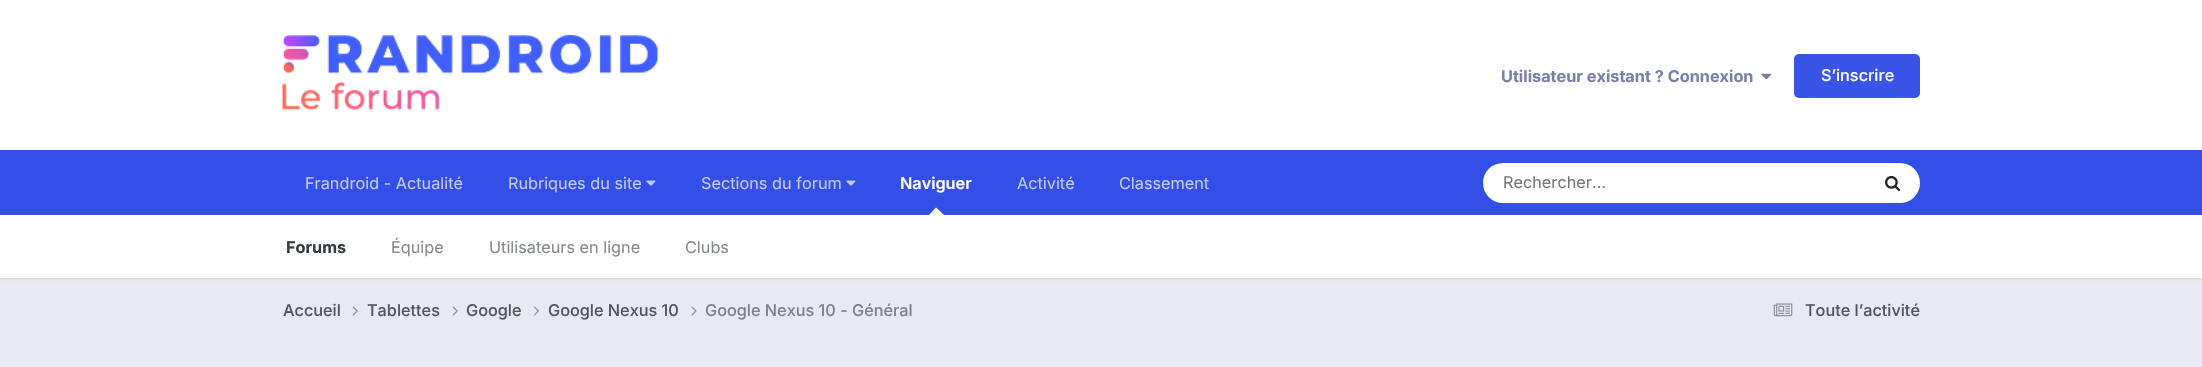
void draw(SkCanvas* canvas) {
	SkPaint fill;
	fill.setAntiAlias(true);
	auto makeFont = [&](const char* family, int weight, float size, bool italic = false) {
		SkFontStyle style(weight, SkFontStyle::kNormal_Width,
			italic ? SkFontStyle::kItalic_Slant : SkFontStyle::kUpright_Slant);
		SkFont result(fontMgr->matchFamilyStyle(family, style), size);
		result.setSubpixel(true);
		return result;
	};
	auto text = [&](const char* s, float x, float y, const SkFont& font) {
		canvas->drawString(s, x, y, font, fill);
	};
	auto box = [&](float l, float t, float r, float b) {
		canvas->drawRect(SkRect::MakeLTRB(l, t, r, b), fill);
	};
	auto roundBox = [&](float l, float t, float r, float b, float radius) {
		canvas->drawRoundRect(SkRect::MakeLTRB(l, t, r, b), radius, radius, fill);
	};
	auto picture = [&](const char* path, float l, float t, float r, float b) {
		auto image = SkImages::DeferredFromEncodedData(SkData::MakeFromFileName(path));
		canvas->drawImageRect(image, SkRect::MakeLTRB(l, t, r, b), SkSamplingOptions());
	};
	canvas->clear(0xFFE8E9F1);
	fill.setColor(0xFFFFFFFF);
	box(0, 0, 2202, 150);
	picture("image0.png", 282, 35, 658, 111);
	picture("image1.png", 1761, 73, 1772, 80);
	fill.setColor(0xFF3A54E8);
	roundBox(1794, 54, 1920, 98, 5);
	fill.setColor(0xFF344FE8);
	box(0, 150, 2202, 215);
	fill.setColor(0x1A000000);
	fill.setMaskFilter(SkMaskFilter::MakeBlur(kNormal_SkBlurStyle, 1));
	canvas->drawRect(SkRect::MakeLTRB(0, 216, 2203, 279), fill);
	fill.setMaskFilter(nullptr);
	fill.setColor(0xFFFFFFFF);
	canvas->drawPath(SkPathBuilder().moveTo(944, 215).lineTo(929, 215).lineTo(936, 207.5f).close().detach(), fill);
	picture("image2.png", 646, 180, 656, 186);
	picture("image2.png", 846, 180, 856, 186);
	roundBox(1483, 163, 1920, 203, 20);
	picture("image3.png", 1885, 176, 1901, 191);
	box(0, 215, 2202, 278);
	picture("image4.png", 352, 306, 358, 316);
	picture("image4.png", 452, 306, 458, 316);
	picture("image5.png", 534, 306, 539, 316);
	picture("image6.png", 691, 306, 697, 316);
	picture("image7.png", 1773, 303, 1793, 317);
	auto font1 = makeFont("Inter", 700, 16.25f);
	fill.setColor(0xFF787FAA);
	text("Utilisateur existant ? Connexion", 1501, 82, font1);
	auto font2 = makeFont("Inter", 500, 16.25f);
	fill.setColor(0xFFFFFFFF);
	text("S’inscrire", 1821, 81, font2);
	auto font3 = makeFont("Inter", 600, 16.25f);
	text("Naviguer", 900, 189, font3);
	fill.setColor(0xFF353C41);
	text("Forums", 286, 253, font1);
	auto font4 = makeFont("Inter", 400, 16.25f);
	fill.setColor(0xFF868A8D);
	text("Équipe", 391, 253, font4);
	text("Utilisateurs en ligne", 489, 253, font4);
	text("Clubs", 685, 253, font4);
	fill.setColor(0xFFC2CAF8);
	text("Frandroid - Actualité", 305, 189, font4);
	text("Rubriques du site", 508, 189, font4);
	text("Sections du forum", 701, 189, font4);
	text("Activité", 1017, 189, font4);
	text("Classement", 1119, 189, font4);
	fill.setColor(0xFF757575);
	text("Rechercher…", 1503, 188, font4);
	fill.setColor(0xFF515463);
	text("Accueil", 283, 316, font2);
	text("Tablettes", 367, 316, font2);
	text("Google", 466, 316, font2);
	text("Google Nexus 10", 548, 316, font2);
	fill.setColor(0xFF7E818E);
	text("Google Nexus 10 - Général", 705, 316, font2);
	fill.setColor(0xFF515463);
	text("Toute l’activité", 1805, 316, font2);
}
